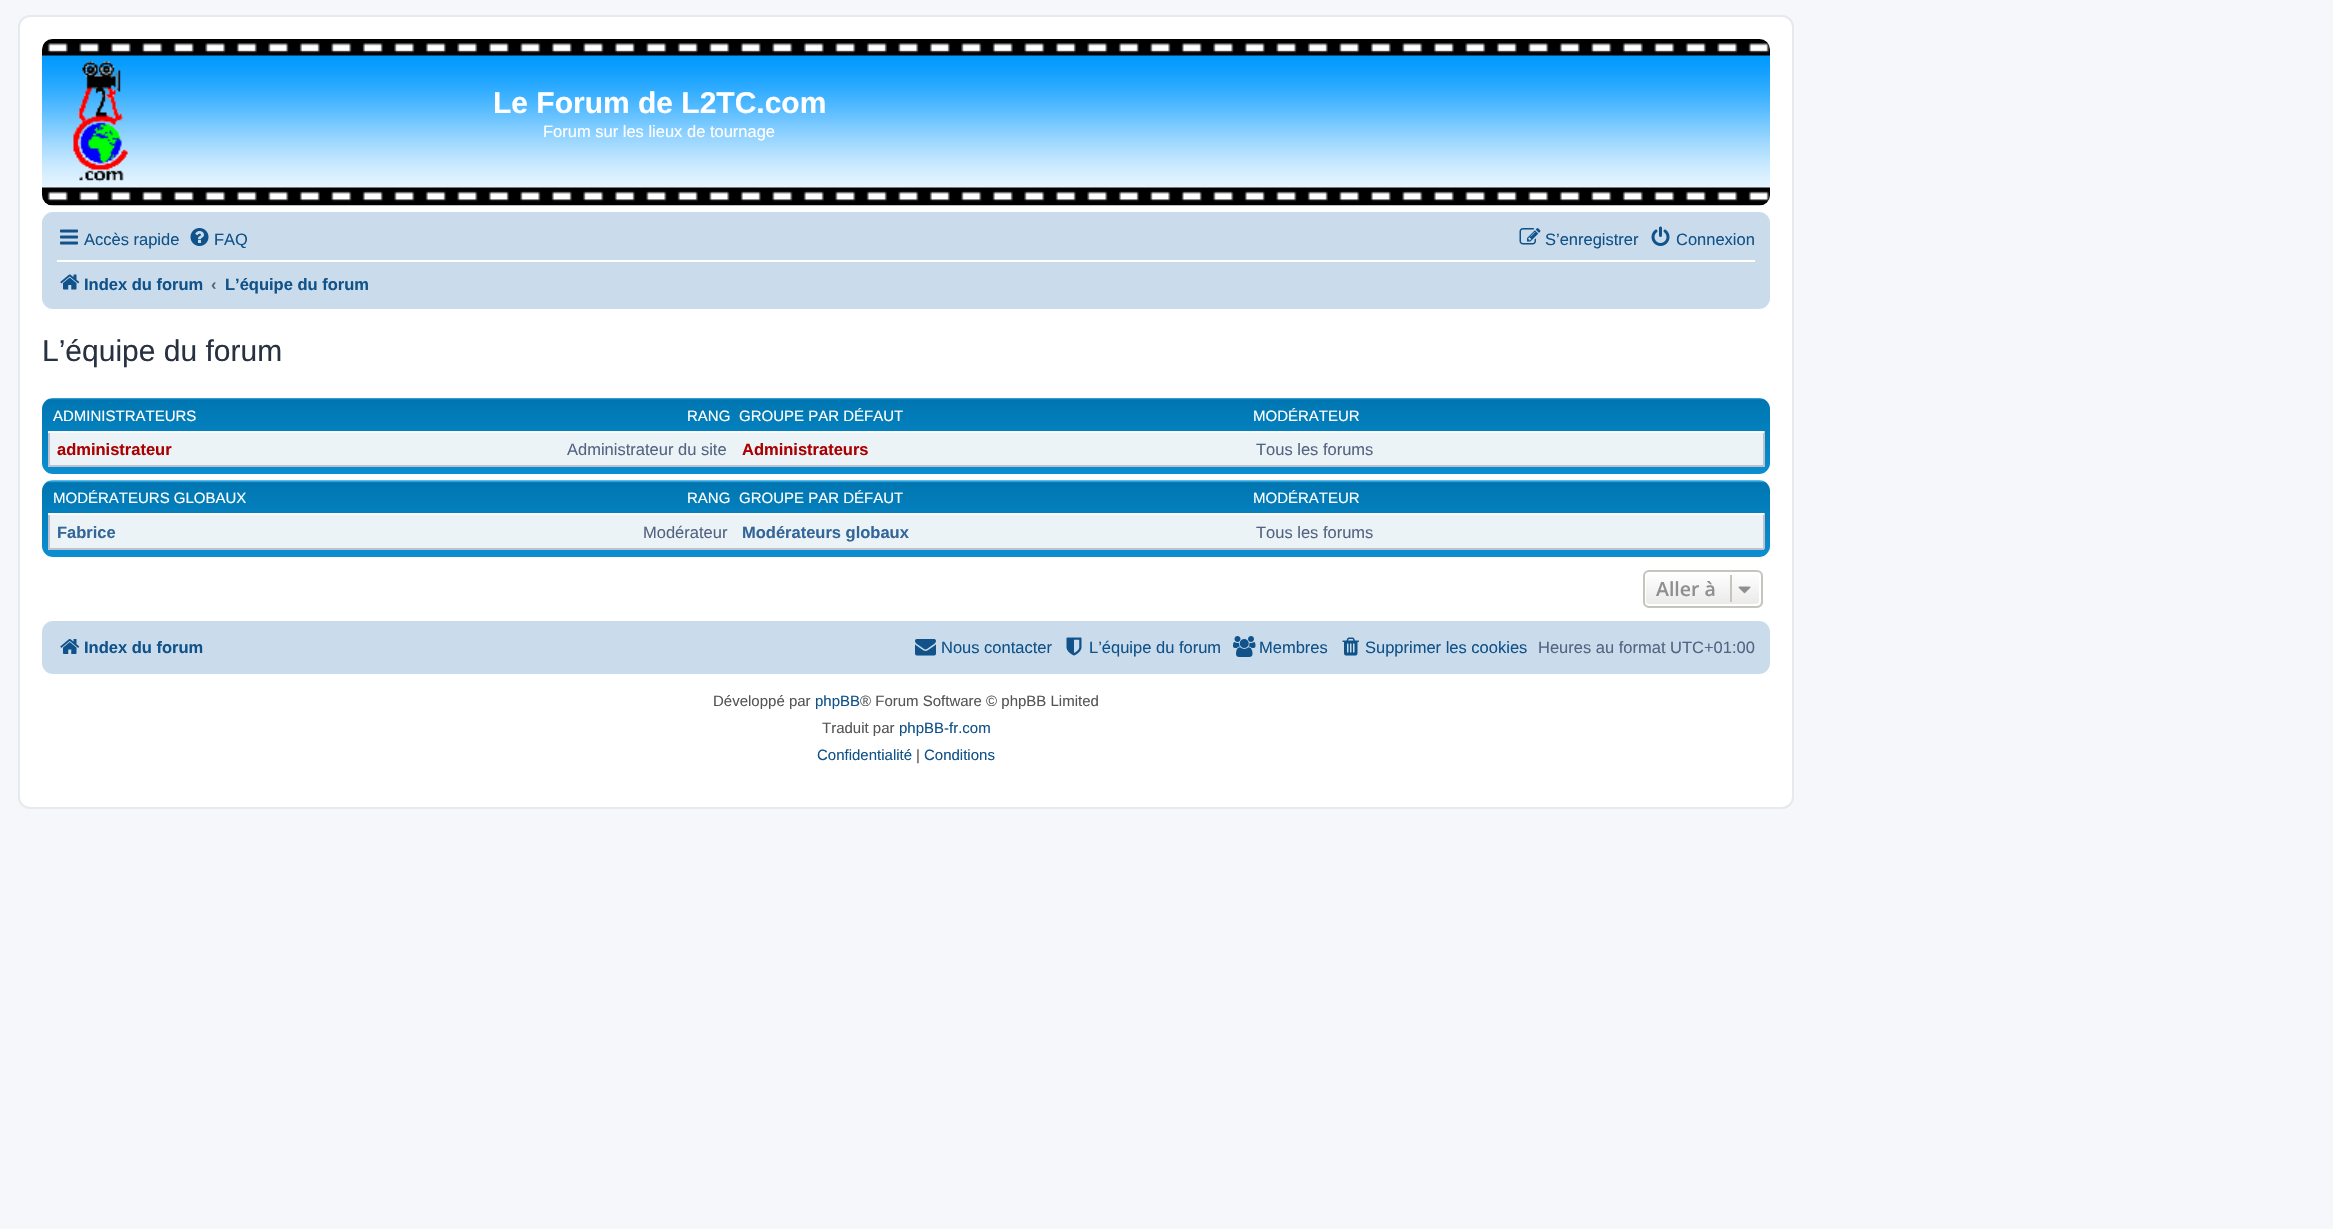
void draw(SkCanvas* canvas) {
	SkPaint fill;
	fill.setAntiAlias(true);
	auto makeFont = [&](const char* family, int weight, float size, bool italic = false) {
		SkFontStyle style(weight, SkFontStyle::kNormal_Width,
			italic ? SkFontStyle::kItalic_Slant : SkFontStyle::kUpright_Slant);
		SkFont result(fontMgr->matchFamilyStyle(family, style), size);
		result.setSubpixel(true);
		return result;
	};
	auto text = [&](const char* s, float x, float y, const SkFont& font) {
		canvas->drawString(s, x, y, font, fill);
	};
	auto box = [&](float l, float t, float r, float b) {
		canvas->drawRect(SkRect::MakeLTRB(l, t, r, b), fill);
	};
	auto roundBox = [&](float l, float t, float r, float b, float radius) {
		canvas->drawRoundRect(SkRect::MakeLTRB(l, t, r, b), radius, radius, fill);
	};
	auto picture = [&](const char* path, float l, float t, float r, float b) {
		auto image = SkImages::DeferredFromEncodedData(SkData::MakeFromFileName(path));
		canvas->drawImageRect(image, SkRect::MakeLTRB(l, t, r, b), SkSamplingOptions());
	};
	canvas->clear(0xFFF5F7FA);
	fill.setColor(0xFFFFFFFF);
	canvas->drawRoundRect(SkRect::MakeLTRB(19, 16, 1793, 808), 11, 11, fill);
	fill.setStyle(SkPaint::kStroke_Style);
	fill.setStrokeWidth(2);
	fill.setColor(0xFFE6E9ED);
	canvas->drawRoundRect(SkRect::MakeLTRB(19, 16, 1793, 808), 11, 11, fill);
	picture("image0.png", 42, 39, 1770, 206);
	picture("image1.png", 73, 61, 128, 182);
	fill.setStyle(SkPaint::kFill_Style);
	fill.setColor(0xFFCADCEB);
	roundBox(42, 212, 1770, 309, 11);
	picture("image2.png", 60, 229, 78, 245);
	picture("image3.png", 190, 228, 209, 246);
	picture("image4.png", 1519, 228, 1541, 245);
	picture("image5.png", 1651, 226, 1670, 246);
	fill.setColor(0xFFFFFFFF);
	box(57, 260, 1755, 262);
	picture("image6.png", 60, 274, 80, 290);
	{
		const SkColor colors[] = {0xFF6ACEFF, 0xFF0076B1, 0xFF12A3EB};
		const float stops[] = {0, 0.02f, 1};
		const SkPoint ends[] = {{906, 397}, {906, 535}};
		fill.setShader(SkGradientShader::MakeLinear(ends, colors, stops, 3, SkTileMode::kClamp));
		fill.setAlpha(255);
	}
	roundBox(42, 398, 1770, 474, 11);
	fill.setShader(nullptr);
	fill.setColor(0xFFECF3F7);
	box(50, 433, 1763, 465);
	fill.setColor(0xFFBFC1CF);
	box(1763, 431, 1765, 467);
	box(48, 465, 1764, 467);
	box(48, 431, 50, 467);
	fill.setColor(0xFFFAFAFA);
	box(48, 431, 1764, 433);
	{
		const SkColor colors[] = {0xFF6ACEFF, 0xFF0076B1, 0xFF12A3EB};
		const float stops[] = {0, 0.02f, 1};
		const SkPoint ends[] = {{906, 480}, {906, 618}};
		fill.setShader(SkGradientShader::MakeLinear(ends, colors, stops, 3, SkTileMode::kClamp));
		fill.setAlpha(255);
	}
	roundBox(42, 480, 1770, 557, 11);
	fill.setShader(nullptr);
	fill.setColor(0xFFECF3F7);
	box(50, 515, 1763, 548);
	fill.setColor(0xFFBFC1CF);
	box(1763, 513, 1765, 549);
	box(48, 548, 1764, 550);
	box(48, 513, 50, 549);
	fill.setColor(0xFFFAFAFA);
	box(48, 513, 1764, 515);
	canvas->save();
	canvas->clipPath(SkPathBuilder().moveTo(1649, 570).lineTo(1757, 570).cubicTo(1760.5f, 570, 1763, 572.5f, 1763, 576).lineTo(1763, 602).cubicTo(1763, 605.5f, 1760.5f, 608, 1757, 608).lineTo(1649, 608).cubicTo(1645.5f, 608, 1643, 605.5f, 1643, 602).lineTo(1643, 576).cubicTo(1643, 572.5f, 1645.5f, 570, 1649, 570).close().detach(), true);
	{
		const SkColor colors[] = {0xFFFFFFFF, 0xFFE9E9E9};
		const float stops[] = {0, 1};
		const SkPoint ends[] = {{1703, 572}, {1703, 606}};
		fill.setShader(SkGradientShader::MakeLinear(ends, colors, stops, 2, SkTileMode::kClamp));
		fill.setAlpha(255);
	}
	box(1643, 572, 1763, 606);
	canvas->restore();
	fill.setStyle(SkPaint::kStroke_Style);
	fill.setShader(nullptr);
	fill.setColor(0xFFFFFFFF);
	canvas->drawRoundRect(SkRect::MakeLTRB(1645, 573, 1760, 605), 4, 4, fill);
	fill.setColor(0xFFC7C3BF);
	canvas->drawRoundRect(SkRect::MakeLTRB(1644, 571, 1762, 607), 5, 5, fill);
	fill.setStyle(SkPaint::kFill_Style);
	box(1730, 575, 1732, 602);
	picture("image7.png", 1738, 586, 1751, 594);
	fill.setColor(0xFFCADCEB);
	roundBox(42, 621, 1770, 674, 11);
	picture("image8.png", 60, 639, 80, 654);
	picture("image9.png", 915, 639, 936, 656);
	picture("image10.png", 1066, 637, 1082, 656);
	picture("image11.png", 1233, 636, 1256, 657);
	picture("image12.png", 1342, 637, 1359, 656);
	auto font1 = makeFont("Liberation Sans", 700, 30);
	fill.setColor(0xFFFFFFFF);
	text("Le Forum de L2TC.com", 493, 113, font1);
	auto font2 = makeFont("Liberation Sans", 400, 16.5f);
	text("Forum sur les lieux de tournage", 543, 137, font2);
	fill.setColor(0xFF105289);
	text("Accès rapide", 84, 245, font2);
	text("FAQ", 214, 245, font2);
	text("S’enregistrer", 1545, 245, font2);
	text("Connexion", 1676, 245, font2);
	auto font3 = makeFont("Liberation Sans", 700, 16.5f);
	text("Index du forum", 84, 290, font3);
	fill.setColor(0xFF536482);
	text("‹", 211, 290, font3);
	fill.setColor(0xFF105289);
	text("L’équipe du forum", 225, 290, font3);
	auto font4 = makeFont("Liberation Sans", 400, 30);
	fill.setColor(0xFF28313F);
	text("L’équipe du forum", 42, 361, font4);
	auto font5 = makeFont("Liberation Sans", 400, 15);
	fill.setColor(0xFFFFFFFF);
	text("ADMINISTRATEURS", 53, 421, font5);
	text("RANG", 687, 421, font5);
	text("GROUPE PAR DÉFAUT", 739, 421, font5);
	text("MODÉRATEUR", 1253, 421, font5);
	fill.setColor(0xFFAA0000);
	text("administrateur", 57, 455, font3);
	fill.setColor(0xFF536482);
	text("Administrateur du site", 567, 455, font2);
	fill.setColor(0xFFAA0000);
	text("Administrateurs", 742, 455, font3);
	fill.setColor(0xFF536482);
	text("Tous les forums", 1256, 455, font2);
	fill.setColor(0xFFFFFFFF);
	text("MODÉRATEURS GLOBAUX", 53, 503, font5);
	text("RANG", 687, 503, font5);
	text("GROUPE PAR DÉFAUT", 739, 503, font5);
	text("MODÉRATEUR", 1253, 503, font5);
	fill.setColor(0xFF336699);
	text("Fabrice", 57, 538, font3);
	fill.setColor(0xFF536482);
	text("Modérateur", 643, 538, font2);
	fill.setColor(0xFF336699);
	text("Modérateurs globaux", 742, 538, font3);
	fill.setColor(0xFF536482);
	text("Tous les forums", 1256, 538, font2);
	auto font6 = makeFont("Open Sans", 600, 19.5f);
	fill.setColor(0xFF8F8F8F);
	text("Aller à", 1656, 596, font6);
	fill.setColor(0xFF105289);
	text("Index du forum", 84, 653, font3);
	text("Nous contacter", 941, 653, font2);
	text("L’équipe du forum", 1089, 653, font2);
	text("Membres", 1259, 653, font2);
	text("Supprimer les cookies", 1365, 653, font2);
	fill.setColor(0xFF536482);
	text("Heures au format UTC+01:00", 1538, 653, font2);
	fill.setColor(0xFF555555);
	text("Développé par", 713, 706, font5);
	fill.setColor(0xFF105289);
	text("phpBB", 815, 706, font5);
	fill.setColor(0xFF555555);
	text("® Forum Software © phpBB Limited", 860, 706, font5);
	text("Traduit par", 822, 733, font5);
	fill.setColor(0xFF105289);
	text("phpBB-fr.com", 899, 733, font5);
	text("Confidentialité", 817, 760, font5);
	fill.setColor(0xFF555555);
	text("|", 916, 760, font5);
	fill.setColor(0xFF105289);
	text("Conditions", 924, 760, font5);
}
